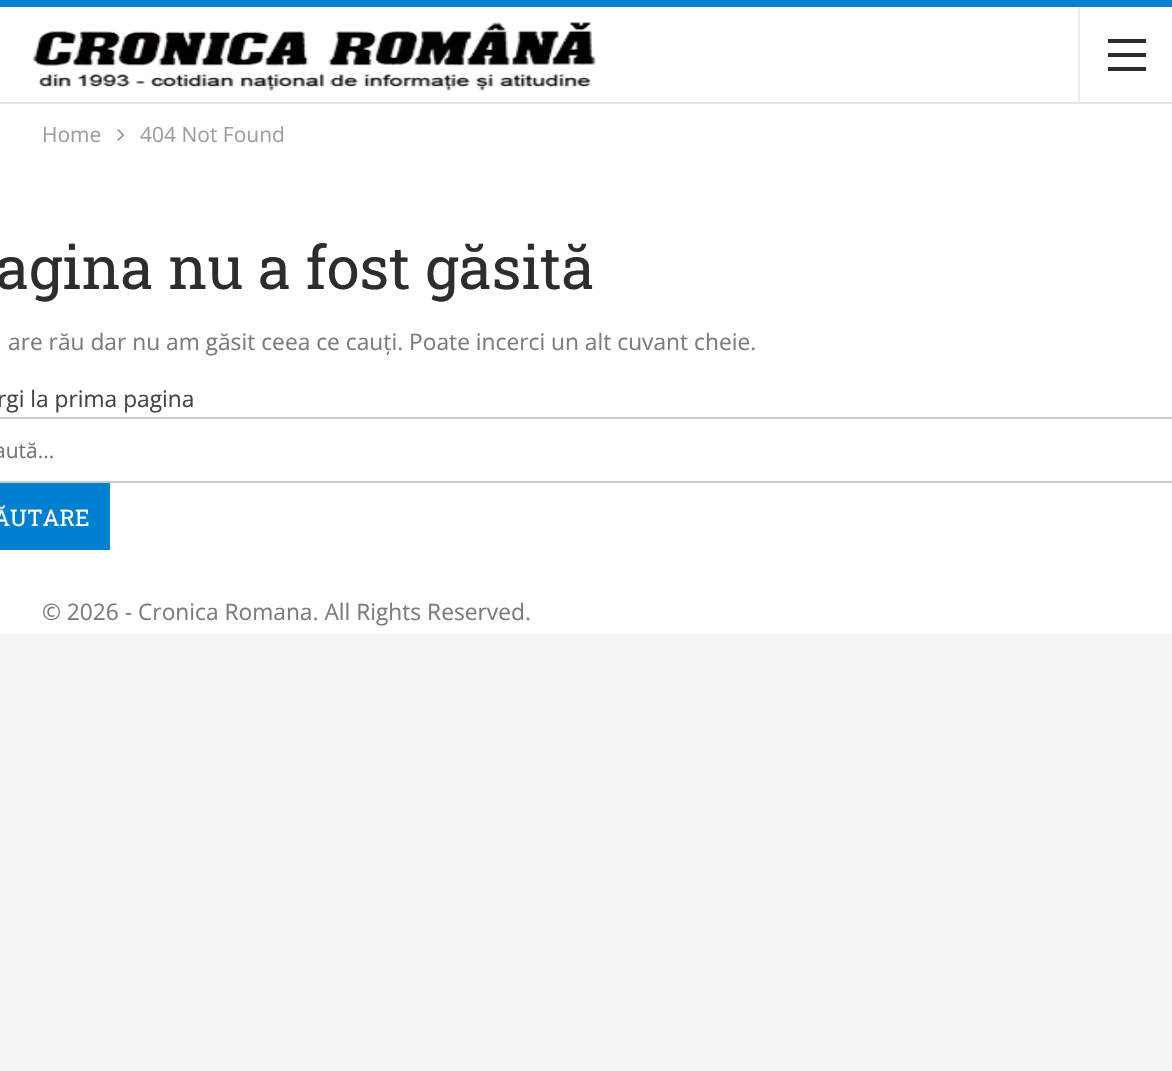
void draw(SkCanvas* canvas) {
	SkPaint fill;
	fill.setAntiAlias(true);
	auto makeFont = [&](const char* family, int weight, float size, bool italic = false) {
		SkFontStyle style(weight, SkFontStyle::kNormal_Width,
			italic ? SkFontStyle::kItalic_Slant : SkFontStyle::kUpright_Slant);
		SkFont result(fontMgr->matchFamilyStyle(family, style), size);
		result.setSubpixel(true);
		return result;
	};
	auto text = [&](const char* s, float x, float y, const SkFont& font) {
		canvas->drawString(s, x, y, font, fill);
	};
	auto box = [&](float l, float t, float r, float b) {
		canvas->drawRect(SkRect::MakeLTRB(l, t, r, b), fill);
	};
	auto picture = [&](const char* path, float l, float t, float r, float b) {
		auto image = SkImages::DeferredFromEncodedData(SkData::MakeFromFileName(path));
		canvas->drawImageRect(image, SkRect::MakeLTRB(l, t, r, b), SkSamplingOptions());
	};
	canvas->clear(0xFFF3F3F3);
	fill.setColor(0xFF0080CE);
	box(0, 0, 1172, 7);
	fill.setColor(0xFFFFFFFF);
	box(0, 7, 1172, 634);
	fill.setColor(0xFFE5E5E5);
	box(0, 102, 1172, 104);
	picture("image0.png", 32, 22, 596, 91);
	fill.setColor(0xFFEDEDED);
	box(1078, 7, 1080, 102);
	fill.setColor(0xFF2C2C2C);
	box(1108, 53, 1146, 57);
	box(1108, 39, 1146, 43);
	box(1108, 67, 1146, 71);
	picture("image1.png", 117, 129, 125, 141);
	fill.setStyle(SkPaint::kStroke_Style);
	fill.setStrokeWidth(2);
	fill.setColor(0xFFCCCCCC);
	canvas->drawRect(SkRect::MakeLTRB(-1, 418, 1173, 482), fill);
	fill.setStyle(SkPaint::kFill_Style);
	fill.setColor(0xFF0080CE);
	box(0, 483, 110, 550);
	auto font1 = makeFont("Open Sans", 400, 21);
	fill.setColor(0xFF9E9E9E);
	text("Home", 42, 142, font1);
	text("404 Not Found", 140, 142, font1);
	auto font2 = makeFont("Roboto Slab", 400, 59.5f);
	fill.setColor(0xFF2D2D2D);
	text("agina nu a fost găsită", -4, 289, font2);
	auto font3 = makeFont("Open Sans", 400, 22.75f);
	fill.setColor(0xFF7B7B7B);
	text("are rău dar nu am găsit ceea ce cauți. Poate incerci un alt cuvant cheie.", 8, 350, font3);
	fill.setColor(0xFF444444);
	text("rgi la prima pagina", -3, 407, font3);
	fill.setColor(0xFF757575);
	text("aută...", -6, 458, font1);
	auto font4 = makeFont("Roboto Slab", 400, 22.75f);
	fill.setColor(0xFFFFFFFF);
	text("ĂUTARE", -7, 526, font4);
	fill.setColor(0xFF7B7B7B);
	text("© 2026 - Cronica Romana. All Rights Reserved.", 42, 620, font3);
}
